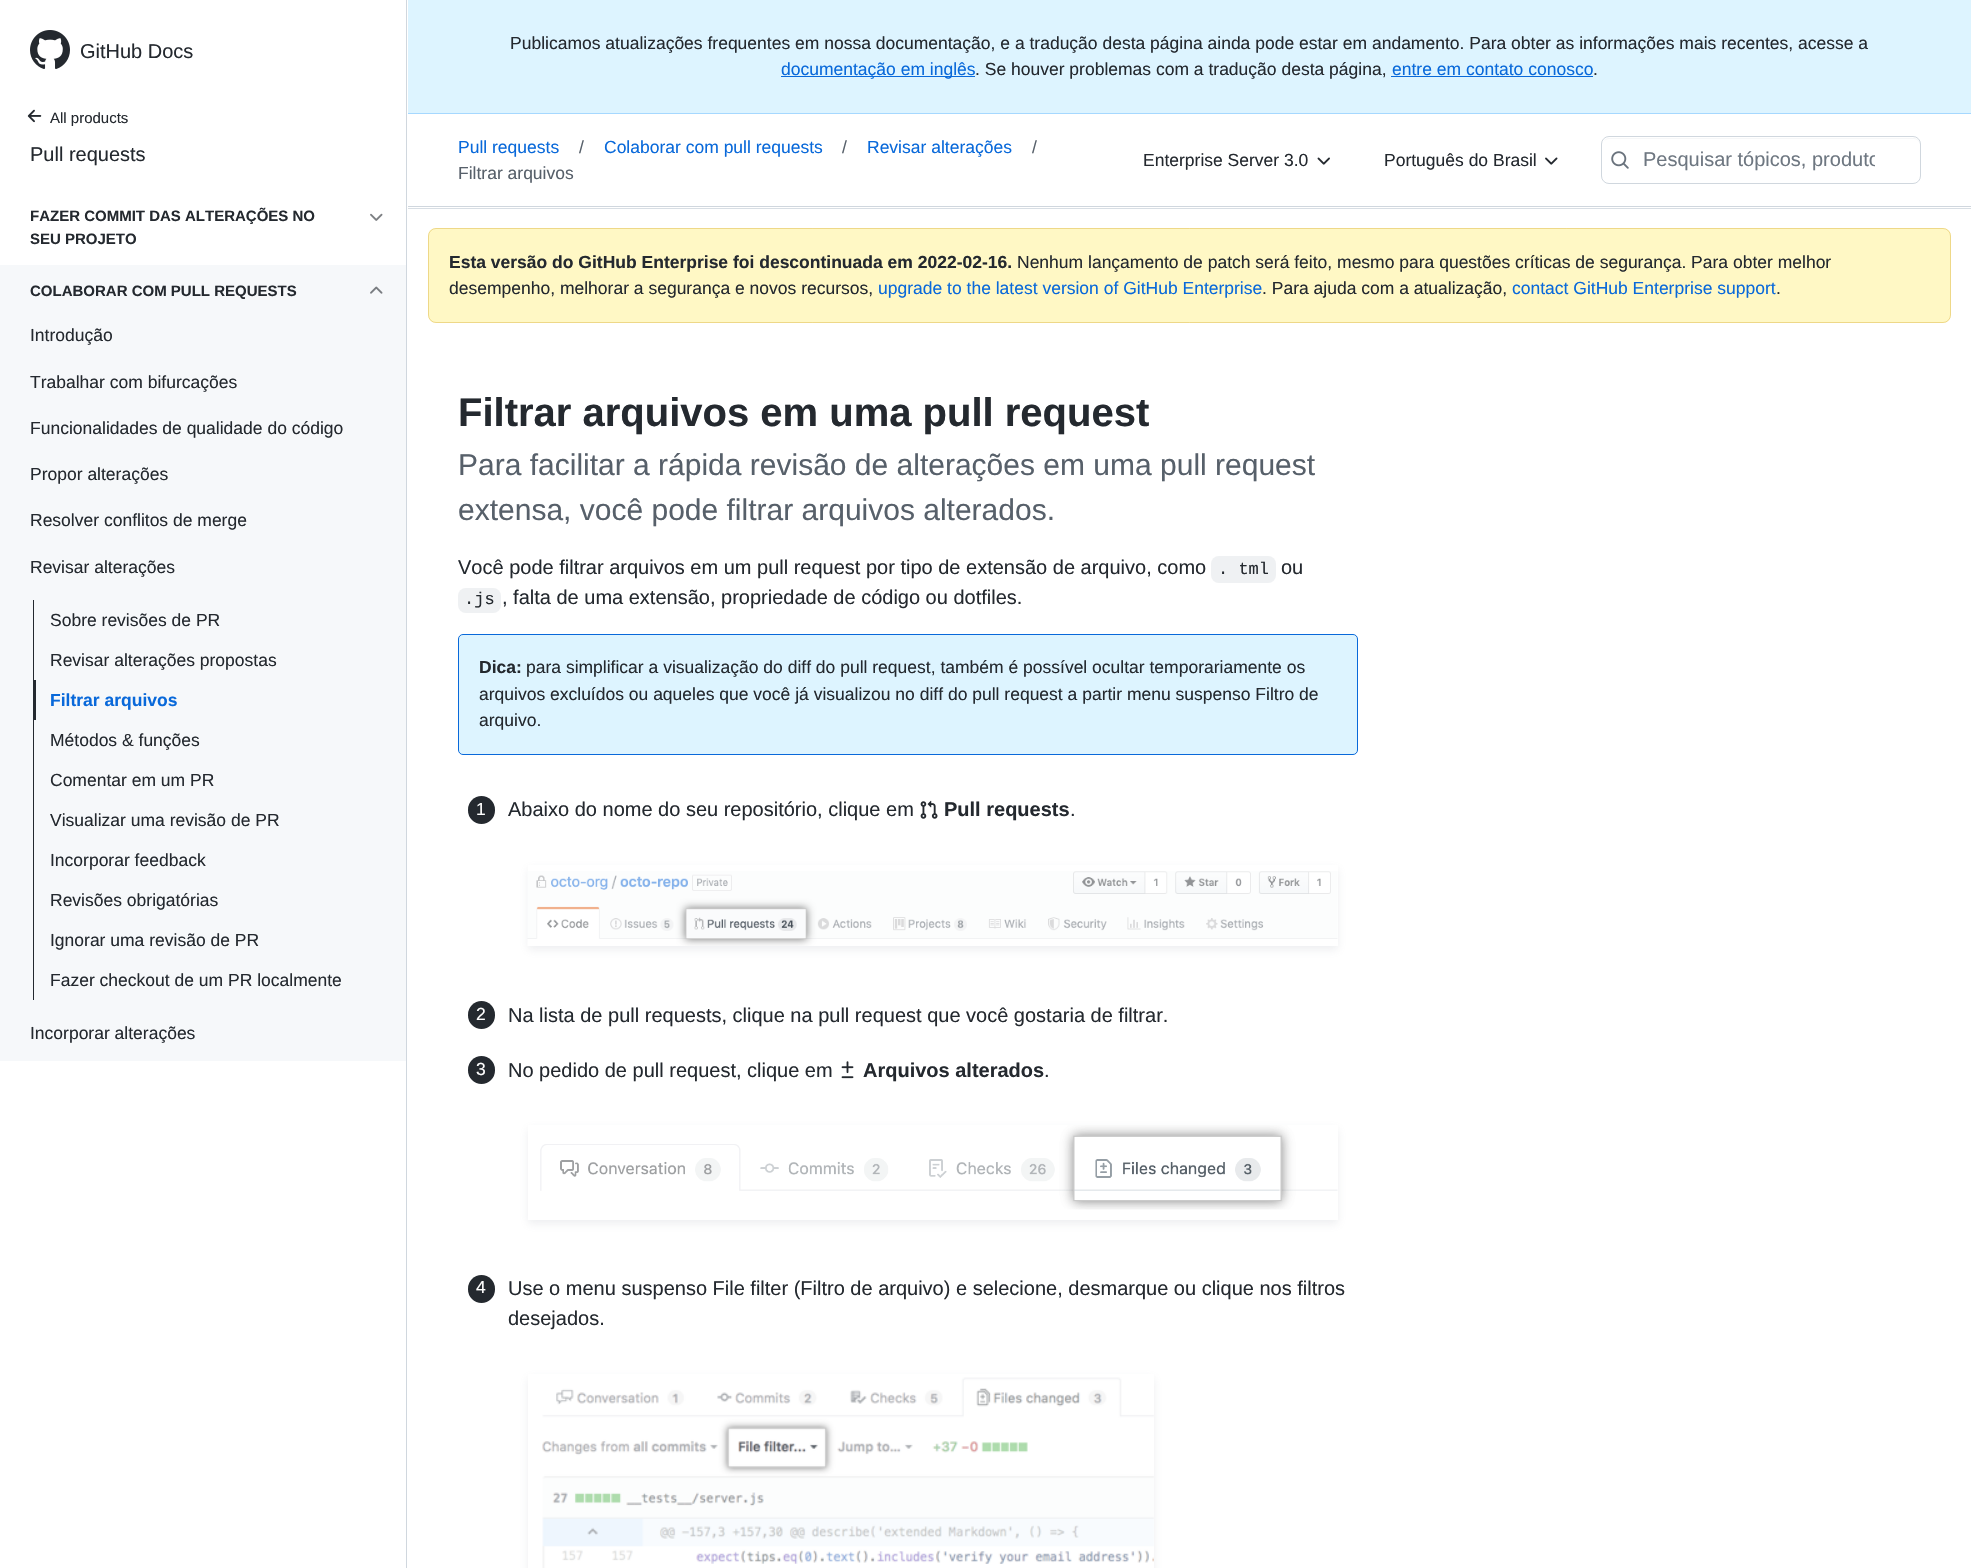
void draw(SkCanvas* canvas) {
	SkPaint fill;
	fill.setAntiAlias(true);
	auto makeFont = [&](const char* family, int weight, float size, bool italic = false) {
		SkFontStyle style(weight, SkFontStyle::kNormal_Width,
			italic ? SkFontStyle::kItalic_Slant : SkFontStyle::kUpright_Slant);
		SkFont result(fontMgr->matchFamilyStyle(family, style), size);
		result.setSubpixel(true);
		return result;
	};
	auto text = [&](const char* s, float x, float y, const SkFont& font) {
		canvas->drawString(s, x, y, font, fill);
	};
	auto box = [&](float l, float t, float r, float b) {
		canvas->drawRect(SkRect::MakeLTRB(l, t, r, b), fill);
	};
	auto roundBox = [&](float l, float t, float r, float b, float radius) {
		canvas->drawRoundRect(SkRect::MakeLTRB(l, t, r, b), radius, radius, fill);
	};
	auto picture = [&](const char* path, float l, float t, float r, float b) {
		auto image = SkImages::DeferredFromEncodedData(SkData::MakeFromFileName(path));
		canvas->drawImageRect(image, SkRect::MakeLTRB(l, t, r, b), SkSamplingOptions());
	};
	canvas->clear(0xFFFFFFFF);
	fill.setColor(0xFFD0D7DE);
	box(406, 0, 407, 1568);
	picture("image0.png", 30, 30, 70, 69);
	picture("image1.png", 27, 109, 42, 123);
	picture("image2.png", 370, 213, 383, 221);
	fill.setColor(0xFFF6F8FA);
	box(0, 265, 406, 1061);
	picture("image3.png", 370, 286, 383, 294);
	fill.setColor(0xFF24292F);
	box(33, 600, 34, 680);
	box(33, 680, 36, 720);
	box(33, 720, 34, 1000);
	fill.setColor(0xFFD8DEE4);
	box(408, 208, 1971, 209);
	fill.setColor(0xFFDDF4FF);
	box(408, 0, 1971, 113);
	fill.setColor(0xFFA6D8FF);
	box(408, 113, 1971, 114);
	fill.setColor(0xFF0969DA);
	box(781, 76, 975, 77);
	box(1391, 76, 1593, 77);
	fill.setColor(0xFFD0D7DE);
	box(408, 206, 1971, 207);
	picture("image4.png", 1317, 157, 1330, 165);
	picture("image5.png", 1545, 157, 1558, 165);
	picture("image6.png", 1611, 151, 1629, 169);
	fill.setColor(0xFFF6F7F8);
	canvas->drawPath(SkPathBuilder().moveTo(1609, 139).lineTo(1914, 139).cubicTo(1917, 139, 1920, 142, 1920, 145).lineTo(1920, 144).cubicTo(1920, 141, 1917, 138, 1914, 138).lineTo(1609, 138).cubicTo(1607, 138, 1605, 139, 1604, 141).cubicTo(1605, 140, 1607, 139, 1609, 139).close().detach(), fill);
	fill.setStyle(SkPaint::kStroke_Style);
	fill.setStrokeWidth(1);
	fill.setColor(0xFFD0D7DE);
	canvas->drawRoundRect(SkRect::MakeLTRB(1601.5f, 136.5f, 1920.5f, 183.5f), 7.5f, 7.5f, fill);
	fill.setStyle(SkPaint::kFill_Style);
	fill.setColor(0xFFFFF8C5);
	roundBox(428, 228, 1951, 323, 8);
	fill.setStyle(SkPaint::kStroke_Style);
	fill.setColor(0x66D4A72C);
	canvas->drawRoundRect(SkRect::MakeLTRB(428.5f, 228.5f, 1950.5f, 322.5f), 7.5f, 7.5f, fill);
	fill.setStyle(SkPaint::kFill_Style);
	fill.setColor(0xFFEFF1F3);
	roundBox(1211, 556, 1276, 583, 8);
	roundBox(458, 588, 501, 613, 8);
	fill.setColor(0xFFDDF4FF);
	canvas->drawRoundRect(SkRect::MakeLTRB(458.5f, 634.5f, 1357.5f, 754.5f), 4.5f, 4.5f, fill);
	fill.setStyle(SkPaint::kStroke_Style);
	fill.setColor(0xFF0969DA);
	canvas->drawRoundRect(SkRect::MakeLTRB(458.5f, 634.5f, 1357.5f, 754.5f), 4.5f, 4.5f, fill);
	fill.setStyle(SkPaint::kFill_Style);
	fill.setColor(0xFF24292F);
	roundBox(468, 796, 495, 824, 13.5f);
	picture("image7.png", 920, 800, 938, 819);
	fill.setColor(0x268C959F);
	fill.setMaskFilter(SkMaskFilter::MakeBlur(kNormal_SkBlurStyle, 4));
	canvas->drawRect(SkRect::MakeLTRB(528, 869, 1338, 950), fill);
	fill.setMaskFilter(nullptr);
	fill.setColor(0xFFFFFFFF);
	box(528, 865, 1338, 946);
	picture("image8.png", 527, 871, 1338, 946);
	fill.setColor(0xFF24292F);
	roundBox(468, 1001, 495, 1029, 13.5f);
	roundBox(468, 1056, 495, 1084, 13.5f);
	picture("image9.png", 841, 1061, 854, 1079);
	fill.setColor(0x268C959F);
	fill.setMaskFilter(SkMaskFilter::MakeBlur(kNormal_SkBlurStyle, 4));
	canvas->drawRect(SkRect::MakeLTRB(528, 1129, 1338, 1224), fill);
	fill.setMaskFilter(nullptr);
	fill.setColor(0xFFFFFFFF);
	box(528, 1125, 1338, 1220);
	picture("image10.png", 540, 1125, 1338, 1210);
	fill.setColor(0xFF24292F);
	roundBox(468, 1275, 495, 1303, 13.5f);
	fill.setColor(0x268C959F);
	fill.setMaskFilter(SkMaskFilter::MakeBlur(kNormal_SkBlurStyle, 4));
	canvas->drawRect(SkRect::MakeLTRB(528, 1378, 1154, 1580), fill);
	fill.setMaskFilter(nullptr);
	fill.setColor(0xFFFFFFFF);
	box(528, 1374, 1154, 1568);
	picture("image11.png", 542, 1377, 1154, 1568);
	auto font1 = makeFont("Liberation Sans", 400, 20);
	fill.setColor(0xFF24292F);
	text("GitHub Docs", 80, 58, font1);
	auto font2 = makeFont("Liberation Sans", 400, 15);
	text("All products", 50, 123, font2);
	text("Pull requests", 30, 161, font1);
	auto font3 = makeFont("Liberation Sans", 700, 15);
	text("FAZER COMMIT DAS ALTERAÇÕES NO", 30, 221, font3);
	text("SEU PROJETO", 30, 244, font3);
	text("COLABORAR COM PULL REQUESTS", 30, 296, font3);
	auto font4 = makeFont("Liberation Sans", 400, 17.5f);
	text("Introdução", 30, 341, font4);
	text("Trabalhar com bifurcações", 30, 388, font4);
	text("Funcionalidades de qualidade do código", 30, 434, font4);
	text("Propor alterações", 30, 480, font4);
	text("Resolver conflitos de merge", 30, 526, font4);
	text("Revisar alterações", 30, 573, font4);
	text("Sobre revisões de PR", 50, 626, font4);
	text("Revisar alterações propostas", 50, 666, font4);
	auto font5 = makeFont("Liberation Sans", 700, 17.5f);
	fill.setColor(0xFF0969DA);
	text("Filtrar arquivos", 50, 706, font5);
	fill.setColor(0xFF24292F);
	text("Métodos & funções", 50, 746, font4);
	text("Comentar em um PR", 50, 786, font4);
	text("Visualizar uma revisão de PR", 50, 826, font4);
	text("Incorporar feedback", 50, 866, font4);
	text("Revisões obrigatórias", 50, 906, font4);
	text("Ignorar uma revisão de PR", 50, 946, font4);
	text("Fazer checkout de um PR localmente", 50, 986, font4);
	text("Incorporar alterações", 30, 1039, font4);
	text("Publicamos atualizações frequentes em nossa documentação, e a tradução desta página ainda pode estar em andamento. Para obter as informações mais recentes, acesse a", 510, 49, font4);
	fill.setColor(0xFF0969DA);
	text("documentação em inglês", 781, 75, font4);
	fill.setColor(0xFF24292F);
	text(". Se houver problemas com a tradução desta página,", 975, 75, font4);
	fill.setColor(0xFF0969DA);
	text("entre em contato conosco", 1392, 75, font4);
	fill.setColor(0xFF24292F);
	text(".", 1593, 75, font4);
	fill.setColor(0xFF0969DA);
	text("Pull requests", 458, 153, font4);
	fill.setColor(0xFF57606A);
	text("/", 579, 153, font4);
	fill.setColor(0xFF0969DA);
	text("Colaborar com pull requests", 604, 153, font4);
	fill.setColor(0xFF57606A);
	text("/", 842, 153, font4);
	fill.setColor(0xFF0969DA);
	text("Revisar alterações", 867, 153, font4);
	fill.setColor(0xFF57606A);
	text("/", 1032, 153, font4);
	text("Filtrar arquivos", 458, 179, font4);
	fill.setColor(0xFF24292F);
	text("Enterprise Server 3.0", 1143, 166, font4);
	text("Português do Brasil", 1384, 166, font4);
	canvas->save();
	canvas->clipRect(SkRect::MakeLTRB(1643, 149, 1875, 171));
	fill.setColor(0xFF6E7781);
	text("Pesquisar tópicos, produto", 1643, 166, font1);
	canvas->restore();
	fill.setColor(0xFF24292F);
	text("Esta versão do GitHub Enterprise foi descontinuada em 2022-02-16.", 449, 268, font5);
	text("Nenhum lançamento de patch será feito, mesmo para questões críticas de segurança. Para obter melhor", 1017, 268, font4);
	text("desempenho, melhorar a segurança e novos recursos,", 449, 294, font4);
	fill.setColor(0xFF0969DA);
	text("upgrade to the latest version of GitHub Enterprise", 878, 294, font4);
	fill.setColor(0xFF24292F);
	text(". Para ajuda com a atualização,", 1262, 294, font4);
	fill.setColor(0xFF0969DA);
	text("contact GitHub Enterprise support", 1512, 294, font4);
	fill.setColor(0xFF24292F);
	text(".", 1776, 294, font4);
	auto font6 = makeFont("Liberation Sans", 700, 40);
	text("Filtrar arquivos em uma pull request", 458, 426, font6);
	auto font7 = makeFont("Liberation Sans", 400, 30);
	fill.setColor(0xFF57606A);
	text("Para facilitar a rápida revisão de alterações em uma pull request", 458, 475, font7);
	text("extensa, você pode filtrar arquivos alterados.", 458, 520, font7);
	fill.setColor(0xFF24292F);
	text("Você pode filtrar arquivos em um pull request por tipo de extensão de arquivo, como", 458, 574, font1);
	auto font8 = makeFont("Liberation Mono", 400, 17);
	text(". tml", 1218, 574, font8);
	text("ou", 1281, 574, font1);
	text(".js", 464, 604, font8);
	text(", falta de uma extensão, propriedade de código ou dotfiles.", 502, 604, font1);
	text("Dica:", 479, 673, font5);
	text("para simplificar a visualização do diff do pull request, também é possível ocultar temporariamente os", 526, 673, font4);
	text("arquivos excluídos ou aqueles que você já visualizou no diff do pull request a partir menu suspenso Filtro de", 479, 700, font4);
	text("arquivo.", 479, 726, font4);
	fill.setColor(0xFFFFFFFF);
	text("1", 476, 815, font4);
	fill.setColor(0xFF24292F);
	text("Abaixo do nome do seu repositório, clique em", 508, 816, font1);
	auto font9 = makeFont("Liberation Sans", 700, 20);
	text("Pull requests", 944, 816, font9);
	text(".", 1070, 816, font1);
	fill.setColor(0xFFFFFFFF);
	text("2", 476, 1020, font4);
	fill.setColor(0xFF24292F);
	text("Na lista de pull requests, clique na pull request que você gostaria de filtrar.", 508, 1022, font1);
	fill.setColor(0xFFFFFFFF);
	text("3", 476, 1075, font4);
	fill.setColor(0xFF24292F);
	text("No pedido de pull request, clique em", 508, 1077, font1);
	text("Arquivos alterados", 863, 1077, font9);
	text(".", 1044, 1077, font1);
	fill.setColor(0xFFFFFFFF);
	text("4", 476, 1293, font4);
	fill.setColor(0xFF24292F);
	text("Use o menu suspenso File filter (Filtro de arquivo) e selecione, desmarque ou clique nos filtros", 508, 1295, font1);
	text("desejados.", 508, 1325, font1);
}
